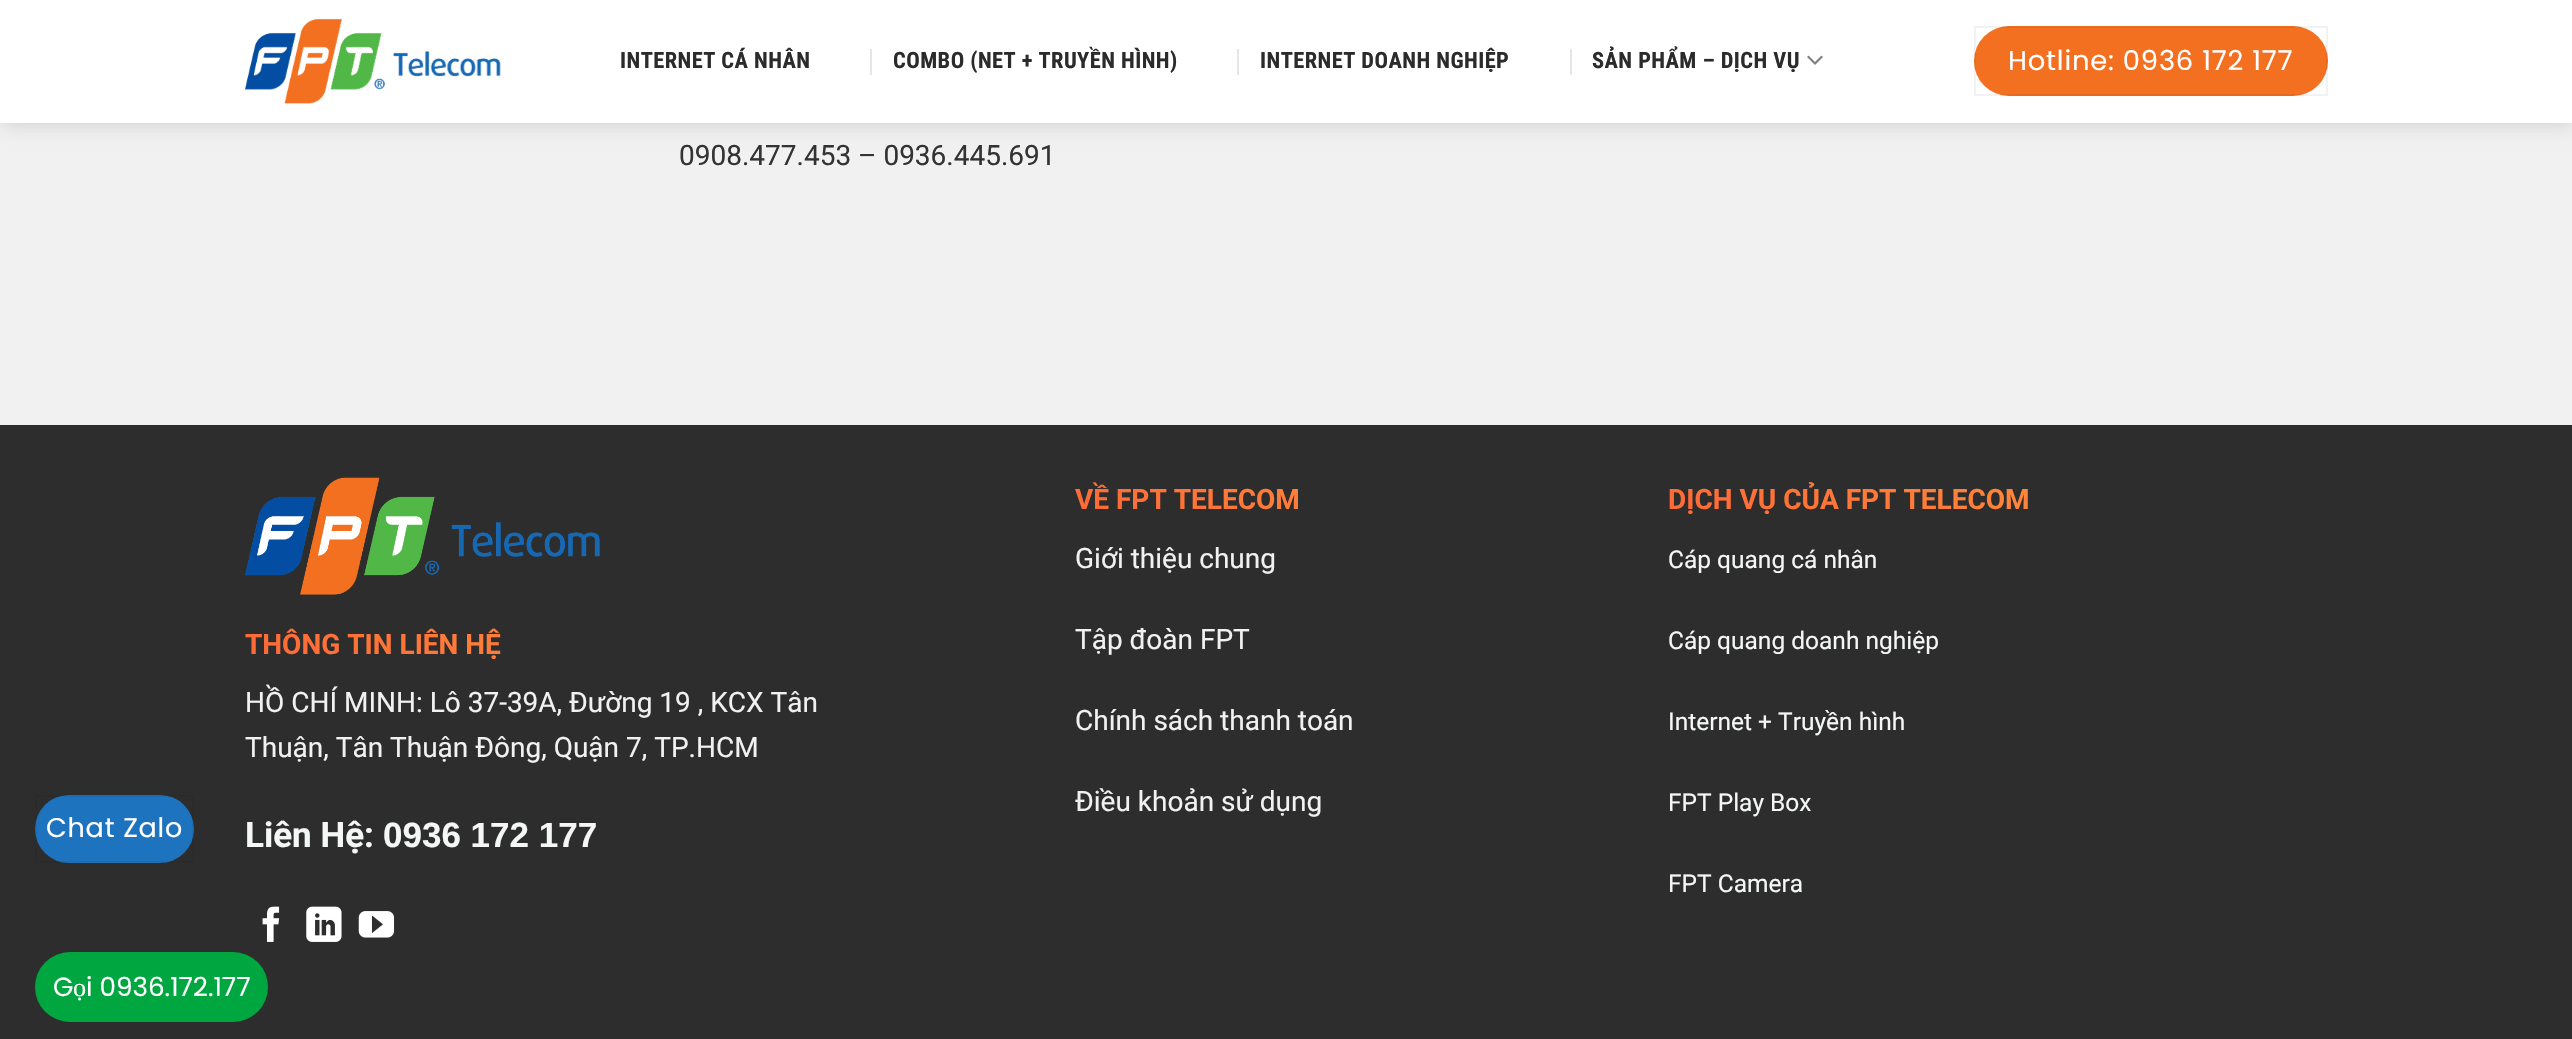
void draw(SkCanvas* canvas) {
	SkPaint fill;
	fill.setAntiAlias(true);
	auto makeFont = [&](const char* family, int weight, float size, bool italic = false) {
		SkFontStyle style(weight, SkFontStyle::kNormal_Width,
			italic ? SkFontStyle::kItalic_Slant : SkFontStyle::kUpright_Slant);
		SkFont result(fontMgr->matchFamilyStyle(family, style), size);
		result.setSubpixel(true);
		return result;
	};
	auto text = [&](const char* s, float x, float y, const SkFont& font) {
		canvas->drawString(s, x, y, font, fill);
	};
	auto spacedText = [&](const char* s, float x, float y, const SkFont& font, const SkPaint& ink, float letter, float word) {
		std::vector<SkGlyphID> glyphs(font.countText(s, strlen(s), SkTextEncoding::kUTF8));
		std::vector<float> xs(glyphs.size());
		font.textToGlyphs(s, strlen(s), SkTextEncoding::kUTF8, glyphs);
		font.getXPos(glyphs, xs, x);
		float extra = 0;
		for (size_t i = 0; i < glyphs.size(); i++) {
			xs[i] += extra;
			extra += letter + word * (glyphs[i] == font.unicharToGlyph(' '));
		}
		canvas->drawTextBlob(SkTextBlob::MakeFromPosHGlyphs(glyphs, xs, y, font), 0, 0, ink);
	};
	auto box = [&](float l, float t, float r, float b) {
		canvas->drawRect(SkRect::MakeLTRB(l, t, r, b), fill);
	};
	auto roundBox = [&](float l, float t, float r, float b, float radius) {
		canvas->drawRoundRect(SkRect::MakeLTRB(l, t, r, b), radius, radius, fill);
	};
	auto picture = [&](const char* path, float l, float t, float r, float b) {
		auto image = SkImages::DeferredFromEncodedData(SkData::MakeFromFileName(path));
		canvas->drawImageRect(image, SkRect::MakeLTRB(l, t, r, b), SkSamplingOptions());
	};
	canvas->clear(0xFFF1F1F1);
	fill.setColor(0xFF2D2D2D);
	box(0, 425, 2572, 1039);
	fill.setColor(0xFF1E73BE);
	roundBox(35, 795, 194, 863, 34);
	fill.setStyle(SkPaint::kStroke_Style);
	fill.setStrokeWidth(2);
	fill.setColor(0x0D000000);
	canvas->drawRect(SkRect::MakeLTRB(36, 796, 193, 862), fill);
	fill.setStyle(SkPaint::kFill_Style);
	fill.setColor(0x26000000);
	fill.setMaskFilter(SkMaskFilter::MakeBlur(kNormal_SkBlurStyle, 9));
	canvas->drawRect(SkRect::MakeLTRB(2, 2, 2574, 124), fill);
	fill.setMaskFilter(nullptr);
	fill.setColor(0xFFFFFFFF);
	box(0, 0, 2572, 123);
	picture("image0.png", 245, 19, 501, 104);
	fill.setColor(0xFFE6E6E6);
	box(870, 49, 872, 75);
	box(1237, 49, 1239, 75);
	box(1570, 49, 1572, 75);
	picture("image1.png", 1807, 55, 1823, 65);
	fill.setColor(0xFFF37021);
	roundBox(1974, 26, 2328, 96, 35);
	fill.setStyle(SkPaint::kStroke_Style);
	fill.setColor(0x0D000000);
	canvas->drawRect(SkRect::MakeLTRB(1975, 27, 2327, 95), fill);
	picture("image2.png", 245, 477, 600, 595);
	picture("image3.png", 262, 906, 280, 942);
	picture("image4.png", 306, 906, 342, 942);
	picture("image5.png", 358, 911, 395, 938);
	fill.setStyle(SkPaint::kFill_Style);
	fill.setColor(0xFF00A63F);
	roundBox(35, 952, 268, 1022, 35);
	auto font1 = makeFont("Poppins", 400, 27);
	fill.setColor(0xFFFFFFFF);
	spacedText("Chat Zalo", 46, 837, font1, fill, 0.75f, 0);
	auto font2 = makeFont("Roboto Condensed", 700, 22.4f);
	fill.setColor(0xFF2B2B2B);
	spacedText("INTERNET CÁ NHÂN", 620, 68, font2, fill, 0.45f, 0);
	spacedText("COMBO (NET + TRUYỀN HÌNH)", 893, 68, font2, fill, 0.45f, 0);
	spacedText("INTERNET DOANH NGHIỆP", 1260, 68, font2, fill, 0.45f, 0);
	spacedText("SẢN PHẨM – DỊCH VỤ", 1592, 68, font2, fill, 0.45f, 0);
	auto font3 = makeFont("Poppins", 400, 27.4f);
	fill.setColor(0xFFFFFFFF);
	spacedText("Hotline: 0936 172 177", 2008, 70, font3, fill, 0.8f, 0);
	auto font4 = makeFont("Roboto", 400, 28);
	fill.setColor(0xFF333333);
	text("0908.477.453 – 0936.445.691", 679, 165, font4);
	auto font5 = makeFont("Roboto", 700, 28);
	{
		const SkColor colors[] = {0xFFFF9D3C, 0xFFFF6736};
		const float stops[] = {0, 1};
		const SkPoint ends[] = {{667, 485}, {482, 804}};
		fill.setShader(SkGradientShader::MakeLinear(ends, colors, stops, 2, SkTileMode::kClamp));
		fill.setAlpha(255);
	}
	text("THÔNG TIN LIÊN HỆ", 245, 654, font5);
	fill.setShader(nullptr);
	fill.setColor(0xFFF1F1F1);
	text("HỒ CHÍ MINH: Lô 37-39A, Đường 19 , KCX Tân", 245, 712, font4);
	text("Thuận, Tân Thuận Đông, Quận 7, TP.HCM", 245, 757, font4);
	auto font6 = makeFont("Roboto", 700, 35);
	fill.setColor(0xFFF5F7F7);
	text("Liên Hệ:", 245, 847, font6);
	auto font7 = makeFont("Liberation Sans", 700, 35);
	text("0936 172 177", 383, 847, font7);
	{
		const SkColor colors[] = {0xFFFF9D3C, 0xFFFF6736};
		const float stops[] = {0, 1};
		const SkPoint ends[] = {{1423, 366}, {1268, 633}};
		fill.setShader(SkGradientShader::MakeLinear(ends, colors, stops, 2, SkTileMode::kClamp));
		fill.setAlpha(255);
	}
	text("VỀ FPT TELECOM", 1075, 509, font5);
	fill.setShader(nullptr);
	fill.setColor(0xFFF1F1F1);
	text("Giới thiệu chung", 1075, 568, font4);
	text("Tập đoàn FPT", 1075, 649, font4);
	text("Chính sách thanh toán", 1075, 730, font4);
	text("Điều khoản sử dụng", 1075, 811, font4);
	{
		const SkColor colors[] = {0xFFFF9D3C, 0xFFFF6736};
		const float stops[] = {0, 1};
		const SkPoint ends[] = {{2090, 340}, {1906, 659}};
		fill.setShader(SkGradientShader::MakeLinear(ends, colors, stops, 2, SkTileMode::kClamp));
		fill.setAlpha(255);
	}
	text("DỊCH VỤ CỦA FPT TELECOM", 1668, 509, font5);
	auto font8 = makeFont("Roboto", 400, 24.5f);
	fill.setShader(nullptr);
	fill.setColor(0xFFF5F7F7);
	text("Cáp quang cá nhân", 1668, 568, font8);
	text("Cáp quang doanh nghiệp", 1668, 649, font8);
	text("Internet + Truyền hình", 1668, 730, font8);
	text("FPT Play Box", 1668, 811, font8);
	text("FPT Camera", 1668, 892, font8);
	auto font9 = makeFont("Poppins", 400, 26.25f);
	fill.setColor(0xFFFFFFFF);
	text("G", 53, 996, font9);
	auto font10 = makeFont("Liberation Serif", 400, 26.25f);
	text("ọ", 73, 996, font10);
	text("i 0936.172.177", 86, 996, font9);
}
